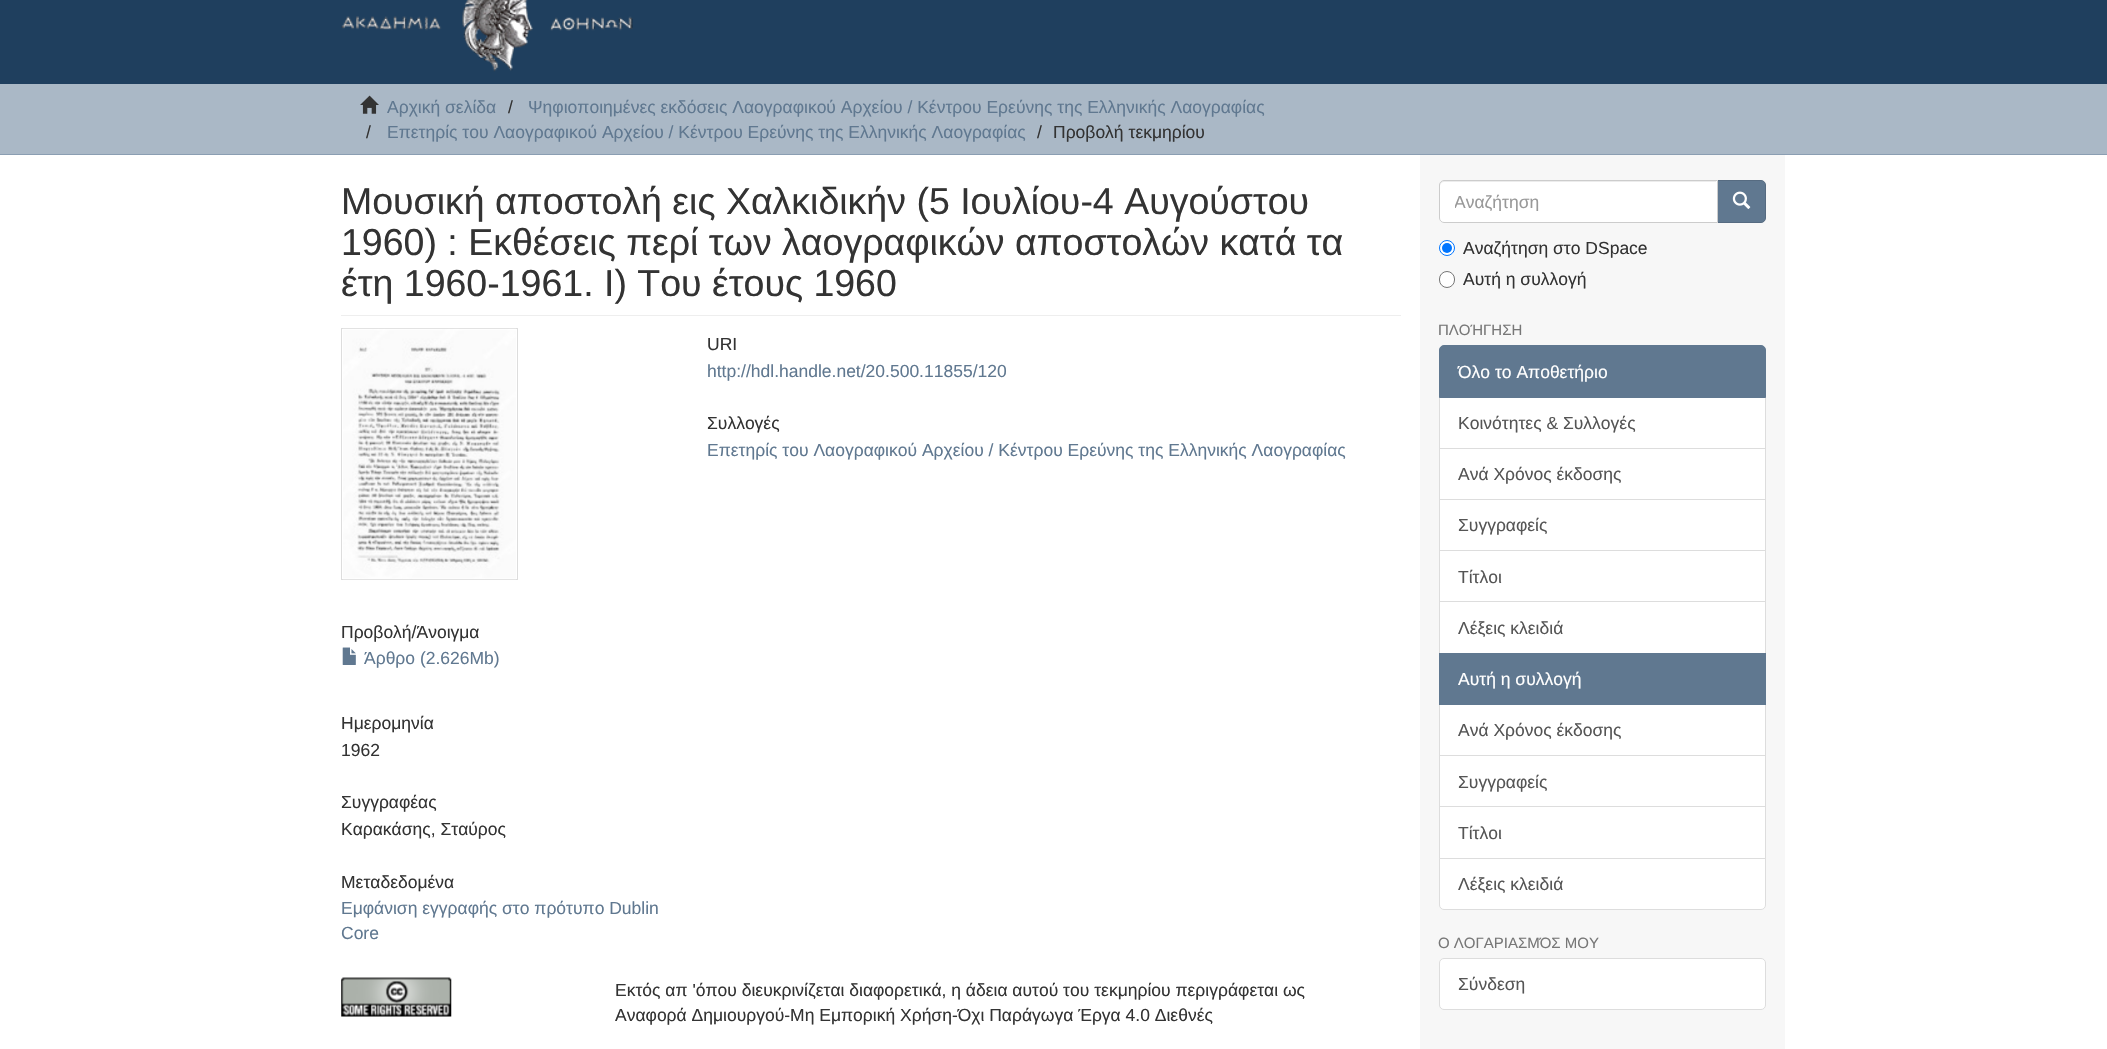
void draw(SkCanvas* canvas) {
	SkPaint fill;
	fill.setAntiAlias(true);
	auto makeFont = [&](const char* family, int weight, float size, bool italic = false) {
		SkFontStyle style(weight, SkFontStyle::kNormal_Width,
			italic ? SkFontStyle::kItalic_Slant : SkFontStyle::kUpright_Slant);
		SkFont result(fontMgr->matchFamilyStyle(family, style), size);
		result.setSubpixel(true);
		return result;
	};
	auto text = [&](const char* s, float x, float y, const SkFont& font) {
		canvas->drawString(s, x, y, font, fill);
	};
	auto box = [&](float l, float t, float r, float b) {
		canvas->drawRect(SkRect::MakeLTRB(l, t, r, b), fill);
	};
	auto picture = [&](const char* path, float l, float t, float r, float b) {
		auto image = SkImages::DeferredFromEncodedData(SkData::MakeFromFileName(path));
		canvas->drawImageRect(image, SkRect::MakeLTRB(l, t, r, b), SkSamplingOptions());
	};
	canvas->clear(0xFFFFFFFF);
	fill.setColor(0xFF1F3F5E);
	box(0, 0, 2107, 84);
	picture("image0.png", 341, 0, 633, 72);
	fill.setColor(0xFFAAB8C6);
	box(0, 84, 2107, 154);
	fill.setColor(0xFF8B9EB2);
	box(0, 154, 2107, 155);
	picture("image1.png", 360, 95, 379, 114);
	fill.setColor(0xFFF7F7F7);
	box(1420, 155, 1785, 1049);
	fill.setColor(0xFFEEEEEE);
	box(341, 315, 1401, 316);
	fill.setStyle(SkPaint::kStroke_Style);
	fill.setStrokeWidth(1);
	fill.setColor(0xFFDDDDDD);
	canvas->drawRect(SkRect::MakeLTRB(341.5f, 328.5f, 517.5f, 579.5f), fill);
	picture("image2.png", 343, 328, 516, 580);
	picture("image3.png", 342, 647, 356, 665);
	picture("image4.png", 341, 977, 452, 1017);
	fill.setStyle(SkPaint::kFill_Style);
	fill.setColor(0xFF607890);
	canvas->drawPath(SkPathBuilder().moveTo(1716.5f, 180.5f).lineTo(1761, 180.5f).cubicTo(1763.5f, 180.5f, 1765.5f, 182.5f, 1765.5f, 185).lineTo(1765.5f, 218).cubicTo(1765.5f, 220.5f, 1763.5f, 222.5f, 1761, 222.5f).lineTo(1716.5f, 222.5f).close().detach(), fill);
	fill.setStyle(SkPaint::kStroke_Style);
	fill.setColor(0xFF566B81);
	canvas->drawPath(SkPathBuilder().moveTo(1716.5f, 180.5f).lineTo(1761, 180.5f).cubicTo(1763.5f, 180.5f, 1765.5f, 182.5f, 1765.5f, 185).lineTo(1765.5f, 218).cubicTo(1765.5f, 220.5f, 1763.5f, 222.5f, 1761, 222.5f).lineTo(1716.5f, 222.5f).close().detach(), fill);
	fill.setStyle(SkPaint::kFill_Style);
	fill.setColor(0xFFFFFFFF);
	canvas->drawPath(SkPathBuilder().moveTo(1444, 180).lineTo(1718, 180).lineTo(1718, 223).lineTo(1444, 223).cubicTo(1441, 223, 1439, 221, 1439, 218).lineTo(1439, 185).cubicTo(1439, 182, 1441, 180, 1444, 180).close().detach(), fill);
	fill.setColor(0xFFECECEC);
	canvas->drawPath(SkPathBuilder().moveTo(1444, 182).lineTo(1716, 182).lineTo(1716, 181).lineTo(1444, 181).cubicTo(1441, 181, 1440, 183, 1440, 186).cubicTo(1440, 184, 1442, 182, 1444, 182).close().detach(), fill);
	fill.setStyle(SkPaint::kStroke_Style);
	fill.setColor(0xFFCCCCCC);
	canvas->drawPath(SkPathBuilder().moveTo(1444, 180.5f).lineTo(1717.5f, 180.5f).lineTo(1717.5f, 222.5f).lineTo(1444, 222.5f).cubicTo(1441.5f, 222.5f, 1439.5f, 220.5f, 1439.5f, 218).lineTo(1439.5f, 185).cubicTo(1439.5f, 182.5f, 1441.5f, 180.5f, 1444, 180.5f).close().detach(), fill);
	picture("image5.png", 1732, 191, 1751, 209);
	fill.setStyle(SkPaint::kFill_Style);
	fill.setColor(0xFFFFFFFF);
	canvas->drawCircle(1447, 248, 7.5f, fill);
	fill.setStyle(SkPaint::kStroke_Style);
	fill.setColor(0xFF0075FF);
	canvas->drawCircle(1447, 248, 7.5f, fill);
	fill.setStyle(SkPaint::kFill_Style);
	canvas->drawCircle(1447, 248, 5, fill);
	fill.setColor(0xFFFFFFFF);
	canvas->drawRoundRect(SkRect::MakeLTRB(1439.5f, 271.5f, 1454.5f, 287.5f), 7.5f, 7.5f, fill);
	fill.setStyle(SkPaint::kStroke_Style);
	fill.setColor(0xFF767676);
	canvas->drawRoundRect(SkRect::MakeLTRB(1439.5f, 271.5f, 1454.5f, 287.5f), 7.5f, 7.5f, fill);
	fill.setStyle(SkPaint::kFill_Style);
	fill.setColor(0xFFFFFFFF);
	box(1440, 398, 1765, 448);
	fill.setStyle(SkPaint::kStroke_Style);
	fill.setColor(0xFFDDDDDD);
	canvas->drawRect(SkRect::MakeLTRB(1439.5f, 396.5f, 1765.5f, 448.5f), fill);
	fill.setStyle(SkPaint::kFill_Style);
	fill.setColor(0xFF607890);
	canvas->drawPath(SkPathBuilder().moveTo(1444, 345.5f).lineTo(1761, 345.5f).cubicTo(1763.5f, 345.5f, 1765.5f, 347.5f, 1765.5f, 350).lineTo(1765.5f, 397.5f).lineTo(1439.5f, 397.5f).lineTo(1439.5f, 350).cubicTo(1439.5f, 347.5f, 1441.5f, 345.5f, 1444, 345.5f).close().detach(), fill);
	fill.setStyle(SkPaint::kStroke_Style);
	canvas->drawPath(SkPathBuilder().moveTo(1444, 345.5f).lineTo(1761, 345.5f).cubicTo(1763.5f, 345.5f, 1765.5f, 347.5f, 1765.5f, 350).lineTo(1765.5f, 397.5f).lineTo(1439.5f, 397.5f).lineTo(1439.5f, 350).cubicTo(1439.5f, 347.5f, 1441.5f, 345.5f, 1444, 345.5f).close().detach(), fill);
	fill.setStyle(SkPaint::kFill_Style);
	fill.setColor(0xFFFFFFFF);
	canvas->drawRect(SkRect::MakeLTRB(1439.5f, 448.5f, 1765.5f, 499.5f), fill);
	fill.setStyle(SkPaint::kStroke_Style);
	fill.setColor(0xFFDDDDDD);
	canvas->drawRect(SkRect::MakeLTRB(1439.5f, 448.5f, 1765.5f, 499.5f), fill);
	fill.setStyle(SkPaint::kFill_Style);
	fill.setColor(0xFFFFFFFF);
	canvas->drawRect(SkRect::MakeLTRB(1439.5f, 499.5f, 1765.5f, 550.5f), fill);
	fill.setStyle(SkPaint::kStroke_Style);
	fill.setColor(0xFFDDDDDD);
	canvas->drawRect(SkRect::MakeLTRB(1439.5f, 499.5f, 1765.5f, 550.5f), fill);
	fill.setStyle(SkPaint::kFill_Style);
	fill.setColor(0xFFFFFFFF);
	box(1440, 551, 1765, 601);
	fill.setStyle(SkPaint::kStroke_Style);
	fill.setColor(0xFFDDDDDD);
	canvas->drawRect(SkRect::MakeLTRB(1439.5f, 550.5f, 1765.5f, 602.5f), fill);
	fill.setStyle(SkPaint::kFill_Style);
	fill.setColor(0xFFFFFFFF);
	canvas->drawRect(SkRect::MakeLTRB(1439.5f, 601.5f, 1765.5f, 653.5f), fill);
	fill.setStyle(SkPaint::kStroke_Style);
	fill.setColor(0xFFDDDDDD);
	canvas->drawRect(SkRect::MakeLTRB(1439.5f, 601.5f, 1765.5f, 653.5f), fill);
	fill.setStyle(SkPaint::kFill_Style);
	fill.setColor(0xFFFFFFFF);
	canvas->drawRect(SkRect::MakeLTRB(1439.5f, 704.5f, 1765.5f, 755.5f), fill);
	fill.setStyle(SkPaint::kStroke_Style);
	fill.setColor(0xFFDDDDDD);
	canvas->drawRect(SkRect::MakeLTRB(1439.5f, 704.5f, 1765.5f, 755.5f), fill);
	fill.setStyle(SkPaint::kFill_Style);
	fill.setColor(0xFF607890);
	box(1439, 653, 1766, 705);
	fill.setColor(0xFFFFFFFF);
	box(1440, 756, 1765, 806);
	fill.setStyle(SkPaint::kStroke_Style);
	fill.setColor(0xFFDDDDDD);
	canvas->drawRect(SkRect::MakeLTRB(1439.5f, 755.5f, 1765.5f, 807.5f), fill);
	fill.setStyle(SkPaint::kFill_Style);
	fill.setColor(0xFFFFFFFF);
	canvas->drawRect(SkRect::MakeLTRB(1439.5f, 806.5f, 1765.5f, 858.5f), fill);
	fill.setStyle(SkPaint::kStroke_Style);
	fill.setColor(0xFFDDDDDD);
	canvas->drawRect(SkRect::MakeLTRB(1439.5f, 806.5f, 1765.5f, 858.5f), fill);
	fill.setStyle(SkPaint::kFill_Style);
	fill.setColor(0xFFFFFFFF);
	canvas->drawPath(SkPathBuilder().moveTo(1439.5f, 858.5f).lineTo(1765.5f, 858.5f).lineTo(1765.5f, 905).cubicTo(1765.5f, 907.5f, 1763.5f, 909.5f, 1761, 909.5f).lineTo(1444, 909.5f).cubicTo(1441.5f, 909.5f, 1439.5f, 907.5f, 1439.5f, 905).close().detach(), fill);
	fill.setStyle(SkPaint::kStroke_Style);
	fill.setColor(0xFFDDDDDD);
	canvas->drawPath(SkPathBuilder().moveTo(1439.5f, 858.5f).lineTo(1765.5f, 858.5f).lineTo(1765.5f, 905).cubicTo(1765.5f, 907.5f, 1763.5f, 909.5f, 1761, 909.5f).lineTo(1444, 909.5f).cubicTo(1441.5f, 909.5f, 1439.5f, 907.5f, 1439.5f, 905).close().detach(), fill);
	fill.setStyle(SkPaint::kFill_Style);
	fill.setColor(0xFFFFFFFF);
	canvas->drawRoundRect(SkRect::MakeLTRB(1439.5f, 958.5f, 1765.5f, 1009.5f), 4.5f, 4.5f, fill);
	fill.setStyle(SkPaint::kStroke_Style);
	fill.setColor(0xFFDDDDDD);
	canvas->drawRoundRect(SkRect::MakeLTRB(1439.5f, 958.5f, 1765.5f, 1009.5f), 4.5f, 4.5f, fill);
	auto font1 = makeFont("Liberation Sans", 400, 17.5f);
	fill.setStyle(SkPaint::kFill_Style);
	fill.setColor(0xFF607890);
	text("Αρχική σελίδα", 387, 113, font1);
	fill.setColor(0xFF333333);
	text("/", 508, 113, font1);
	fill.setColor(0xFF607890);
	text("Ψηφιοποιημένες εκδόσεις Λαογραφικού Αρχείου / Κέντρου Ερεύνης της Ελληνικής Λαογραφίας", 528, 113, font1);
	fill.setColor(0xFF333333);
	text("/", 366, 138, font1);
	fill.setColor(0xFF607890);
	text("Επετηρίς του Λαογραφικού Αρχείου / Κέντρου Ερεύνης της Ελληνικής Λαογραφίας", 387, 138, font1);
	fill.setColor(0xFF333333);
	text("/", 1037, 138, font1);
	text("Προβολή τεκμηρίου", 1053, 138, font1);
	auto font2 = makeFont("Liberation Sans", 400, 37.5f);
	text("Μουσική αποστολή εις Χαλκιδικήν (5 Ιουλίου-4 Αυγούστου", 341, 214, font2);
	text("1960) : Εκθέσεις περί των λαογραφικών αποστολών κατά τα", 341, 255, font2);
	text("έτη 1960-1961. I) Του έτους 1960", 341, 296, font2);
	text("URI", 707, 350, font1);
	fill.setColor(0xFF607890);
	text("http://hdl.handle.net/20.500.11855/120", 707, 377, font1);
	fill.setColor(0xFF333333);
	text("Συλλογές", 707, 429, font1);
	fill.setColor(0xFF607890);
	text("Επετηρίς του Λαογραφικού Αρχείου / Κέντρου Ερεύνης της Ελληνικής Λαογραφίας", 707, 456, font1);
	fill.setColor(0xFF333333);
	text("Προβολή/Άνοιγμα", 341, 638, font1);
	fill.setColor(0xFF607890);
	text("Άρθρο (2.626Mb)", 364, 664, font1);
	fill.setColor(0xFF333333);
	text("Ημερομηνία", 341, 729, font1);
	text("1962", 341, 756, font1);
	text("Συγγραφέας", 341, 808, font1);
	text("Καρακάσης, Σταύρος", 341, 835, font1);
	text("Μεταδεδομένα", 341, 888, font1);
	fill.setColor(0xFF607890);
	text("Εμφάνιση εγγραφής στο πρότυπο Dublin", 341, 914, font1);
	text("Core", 341, 939, font1);
	fill.setColor(0xFF333333);
	text("Εκτός απ 'όπου διευκρινίζεται διαφορετικά, η άδεια αυτού του τεκμηρίου περιγράφεται ως", 615, 996, font1);
	text("Αναφορά Δημιουργού-Μη Εμπορική Χρήση-Όχι Παράγωγα Έργα 4.0 Διεθνές", 615, 1021, font1);
	canvas->save();
	canvas->clipRect(SkRect::MakeLTRB(1455, 191, 1701, 211));
	fill.setColor(0xFF999999);
	text("Αναζήτηση", 1454, 208, font1);
	canvas->restore();
	fill.setColor(0xFF333333);
	text("Αναζήτηση στο DSpace", 1463, 254, font1);
	text("Αυτή η συλλογή", 1463, 285, font1);
	auto font3 = makeFont("Liberation Sans", 400, 15);
	fill.setColor(0xFF777777);
	text("ΠΛΟΉΓΗΣΗ", 1438, 335, font3);
	fill.setColor(0xFFFFFFFF);
	text("Όλο το Αποθετήριο", 1458, 378, font1);
	fill.setColor(0xFF555555);
	text("Κοινότητες & Συλλογές", 1458, 429, font1);
	text("Ανά Χρόνος έκδοσης", 1458, 480, font1);
	text("Συγγραφείς", 1458, 531, font1);
	text("Τίτλοι", 1458, 583, font1);
	text("Λέξεις κλειδιά", 1458, 634, font1);
	fill.setColor(0xFFFFFFFF);
	text("Αυτή η συλλογή", 1458, 685, font1);
	fill.setColor(0xFF555555);
	text("Ανά Χρόνος έκδοσης", 1458, 736, font1);
	text("Συγγραφείς", 1458, 788, font1);
	text("Τίτλοι", 1458, 839, font1);
	text("Λέξεις κλειδιά", 1458, 890, font1);
	fill.setColor(0xFF777777);
	text("Ο ΛΟΓΑΡΙΑΣΜΌΣ ΜΟΥ", 1438, 948, font3);
	fill.setColor(0xFF555555);
	text("Σύνδεση", 1458, 990, font1);
}
